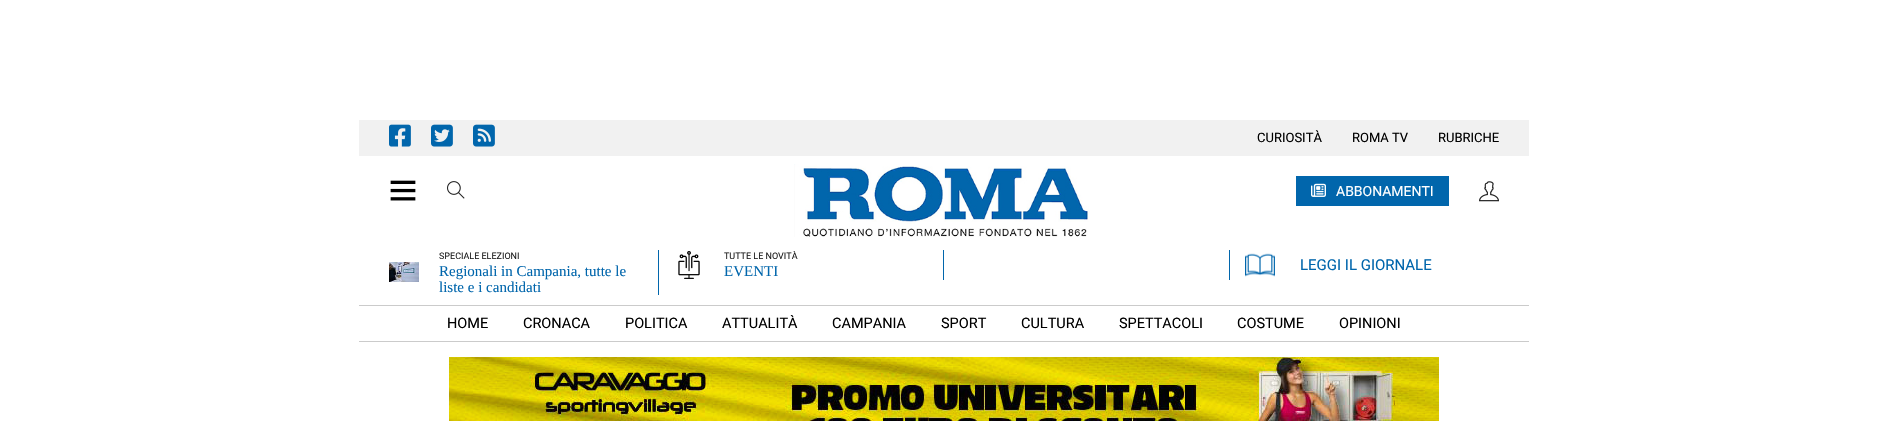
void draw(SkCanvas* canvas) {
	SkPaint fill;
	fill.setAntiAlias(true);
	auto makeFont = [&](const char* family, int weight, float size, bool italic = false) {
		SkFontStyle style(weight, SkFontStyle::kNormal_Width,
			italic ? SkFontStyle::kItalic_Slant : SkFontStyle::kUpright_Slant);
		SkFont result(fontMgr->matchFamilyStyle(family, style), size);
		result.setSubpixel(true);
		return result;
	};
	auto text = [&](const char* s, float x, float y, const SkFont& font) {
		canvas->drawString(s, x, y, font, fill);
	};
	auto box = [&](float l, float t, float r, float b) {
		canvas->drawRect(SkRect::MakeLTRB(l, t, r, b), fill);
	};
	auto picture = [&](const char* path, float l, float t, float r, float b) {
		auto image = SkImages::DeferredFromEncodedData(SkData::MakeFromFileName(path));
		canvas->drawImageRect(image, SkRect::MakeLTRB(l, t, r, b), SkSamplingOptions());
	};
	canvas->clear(0xFFFFFFFF);
	fill.setColor(0xFFF1F1F1);
	box(359, 120, 1529, 156);
	picture("image0.png", 389, 124, 411, 147);
	picture("image1.png", 431, 124, 453, 147);
	picture("image2.png", 473, 124, 495, 147);
	picture("image3.png", 390, 180, 416, 201);
	picture("image4.png", 447, 181, 465, 199);
	picture("image5.png", 794, 164, 1090, 237);
	fill.setColor(0xFF0166AC);
	box(1296, 176, 1449, 206);
	picture("image6.png", 1311, 183, 1326, 197);
	picture("image7.png", 1479, 181, 1499, 202);
	box(658, 250, 659, 295);
	picture("image8.png", 389, 262, 419, 282);
	box(943, 250, 944, 280);
	picture("image9.png", 678, 251, 700, 279);
	box(1229, 250, 1230, 280);
	picture("image10.png", 1245, 253, 1275, 277);
	fill.setColor(0xFFCBCBCB);
	box(359, 305, 1529, 306);
	box(359, 341, 1529, 342);
	picture("image11.png", 449, 357, 1439, 421);
	auto font1 = makeFont("Roboto", 400, 13);
	fill.setColor(0xFF000000);
	text("CURIOSITÀ", 1257, 142, font1);
	text("ROMA TV", 1352, 142, font1);
	text("RUBRICHE", 1438, 142, font1);
	auto font2 = makeFont("Roboto", 400, 14);
	fill.setColor(0xFFFFFFFF);
	text("ABBONAMENTI", 1336, 196, font2);
	auto font3 = makeFont("Roboto", 400, 9);
	fill.setColor(0xFF212121);
	text("SPECIALE ELEZIONI", 439, 259, font3);
	auto font4 = makeFont("Liberation Serif", 400, 15);
	fill.setColor(0xFF0166AC);
	text("Regionali in Campania, tutte le", 439, 276, font4);
	text("liste e i candidati", 439, 292, font4);
	fill.setColor(0xFF212121);
	text("TUTTE LE NOVITÀ", 724, 259, font3);
	fill.setColor(0xFF0166AC);
	text("EVENTI", 724, 276, font4);
	auto font5 = makeFont("Roboto", 400, 15);
	text("LEGGI IL GIORNALE", 1300, 270, font5);
	auto font6 = makeFont("Roboto", 400, 14.5f);
	fill.setColor(0xFF000000);
	text("HOME", 447, 328, font6);
	text("CRONACA", 523, 328, font6);
	text("POLITICA", 625, 328, font6);
	text("ATTUALITÀ", 722, 328, font6);
	text("CAMPANIA", 832, 328, font6);
	text("SPORT", 941, 328, font6);
	text("CULTURA", 1021, 328, font6);
	text("SPETTACOLI", 1119, 328, font6);
	text("COSTUME", 1237, 328, font6);
	text("OPINIONI", 1339, 328, font6);
}
